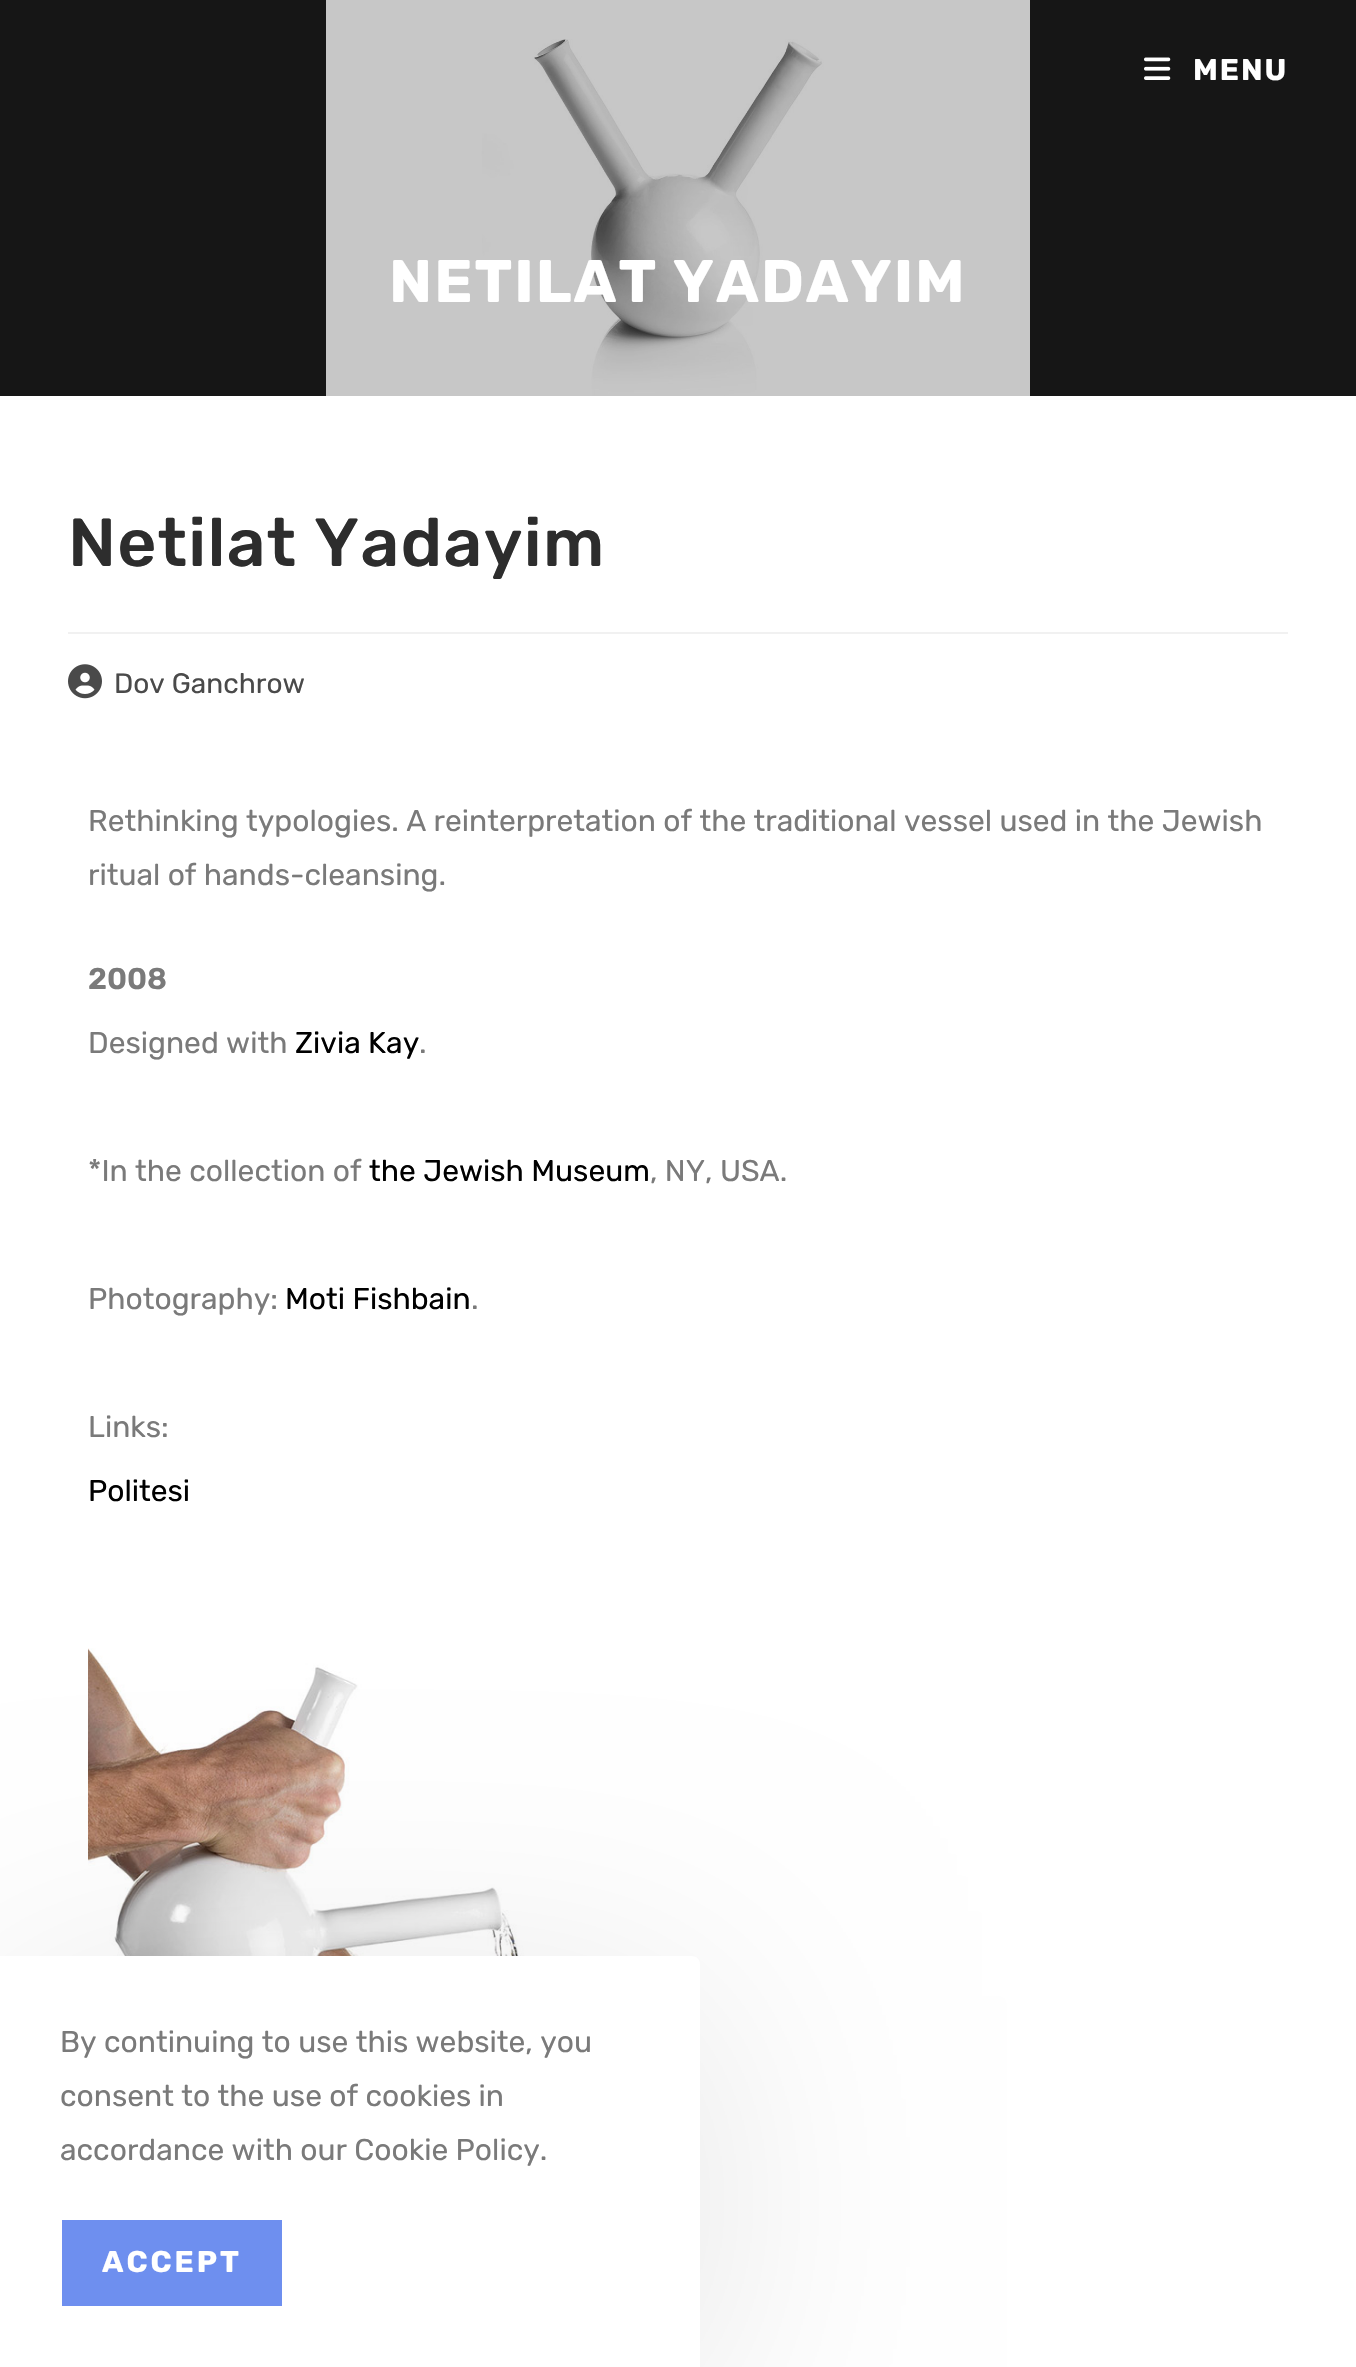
void draw(SkCanvas* canvas) {
	SkPaint fill;
	fill.setAntiAlias(true);
	auto makeFont = [&](const char* family, int weight, float size, bool italic = false) {
		SkFontStyle style(weight, SkFontStyle::kNormal_Width,
			italic ? SkFontStyle::kItalic_Slant : SkFontStyle::kUpright_Slant);
		SkFont result(fontMgr->matchFamilyStyle(family, style), size);
		result.setSubpixel(true);
		return result;
	};
	auto text = [&](const char* s, float x, float y, const SkFont& font) {
		canvas->drawString(s, x, y, font, fill);
	};
	auto spacedText = [&](const char* s, float x, float y, const SkFont& font, const SkPaint& ink, float letter, float word) {
		std::vector<SkGlyphID> glyphs(font.countText(s, strlen(s), SkTextEncoding::kUTF8));
		std::vector<float> xs(glyphs.size());
		font.textToGlyphs(s, strlen(s), SkTextEncoding::kUTF8, glyphs);
		font.getXPos(glyphs, xs, x);
		float extra = 0;
		for (size_t i = 0; i < glyphs.size(); i++) {
			xs[i] += extra;
			extra += letter + word * (glyphs[i] == font.unicharToGlyph(' '));
		}
		canvas->drawTextBlob(SkTextBlob::MakeFromPosHGlyphs(glyphs, xs, y, font), 0, 0, ink);
	};
	auto box = [&](float l, float t, float r, float b) {
		canvas->drawRect(SkRect::MakeLTRB(l, t, r, b), fill);
	};
	auto picture = [&](const char* path, float l, float t, float r, float b) {
		auto image = SkImages::DeferredFromEncodedData(SkData::MakeFromFileName(path));
		canvas->drawImageRect(image, SkRect::MakeLTRB(l, t, r, b), SkSamplingOptions());
	};
	canvas->clear(0xFFFFFFFF);
	fill.setColor(0xFF161616);
	box(0, 0, 1356, 396);
	picture("image0.png", 1144, 57, 1171, 80);
	picture("image1.png", 326, 0, 1030, 396);
	fill.setColor(0xFFF1F1F1);
	box(68, 632, 1288, 634);
	picture("image2.png", 68, 664, 102, 699);
	picture("image3.png", 88, 1648, 636, 1956);
	fill.setColor(0x1A000000);
	fill.setMaskFilter(SkMaskFilter::MakeBlur(kNormal_SkBlurStyle, 150));
	canvas->drawRoundRect(SkRect::MakeLTRB(0, 1996, 700, 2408), 8, 8, fill);
	fill.setMaskFilter(nullptr);
	fill.setColor(0xFFFFFFFF);
	canvas->drawPath(SkPathBuilder().moveTo(0, 1956).lineTo(692, 1956).cubicTo(696.5f, 1956, 700, 1959.5f, 700, 1964).lineTo(700, 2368).lineTo(0, 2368).close().detach(), fill);
	fill.setColor(0xFF6E8FEF);
	box(62, 2220, 282, 2306);
	auto font1 = makeFont("Rubik", 700, 30);
	fill.setColor(0xFFFFFFFF);
	spacedText("MENU", 1193, 80, font1, fill, 2, 0);
	auto font2 = makeFont("Rubik", 700, 60);
	spacedText("NETILAT YADAYIM", 389, 302, font2, fill, 2, 0);
	auto font3 = makeFont("Rubik", 500, 68);
	fill.setColor(0xFF2D2D2D);
	spacedText("Netilat Yadayim", 68, 566, font3, fill, 1.25f, 0);
	auto font4 = makeFont("Rubik", 400, 28);
	fill.setColor(0xFF4A4A4A);
	text("Dov Ganchrow", 114, 693, font4);
	auto font5 = makeFont("Rubik", 400, 30);
	fill.setColor(0xFF7A7A7A);
	text("Rethinking typologies. A reinterpretation of the traditional vessel used in the Jewish", 88, 831, font5);
	text("ritual of hands-cleansing.", 88, 885, font5);
	auto font6 = makeFont("Rubik", 600, 30);
	text("2008", 88, 989, font6);
	text("Designed with", 88, 1053, font5);
	fill.setColor(0xFF000000);
	text("Zivia Kay", 295, 1053, font5);
	fill.setColor(0xFF7A7A7A);
	text(".", 419, 1053, font5);
	text("*In the collection of", 88, 1181, font5);
	fill.setColor(0xFF000000);
	text("the Jewish Museum", 369, 1181, font5);
	fill.setColor(0xFF7A7A7A);
	text(", NY, USA.", 650, 1181, font5);
	text("Photography:", 88, 1309, font5);
	fill.setColor(0xFF000000);
	text("Moti Fishbain", 285, 1309, font5);
	fill.setColor(0xFF7A7A7A);
	text(".", 471, 1309, font5);
	text("Links:", 88, 1437, font5);
	fill.setColor(0xFF000000);
	text("Politesi", 88, 1501, font5);
	fill.setColor(0xFF7A7A7A);
	text("By continuing to use this website, you", 60, 2052, font5);
	text("consent to the use of cookies in", 60, 2106, font5);
	text("accordance with our Cookie Policy.", 60, 2160, font5);
	fill.setColor(0xFFFFFFFF);
	spacedText("ACCEPT", 102, 2272, font1, fill, 3, 0);
}
